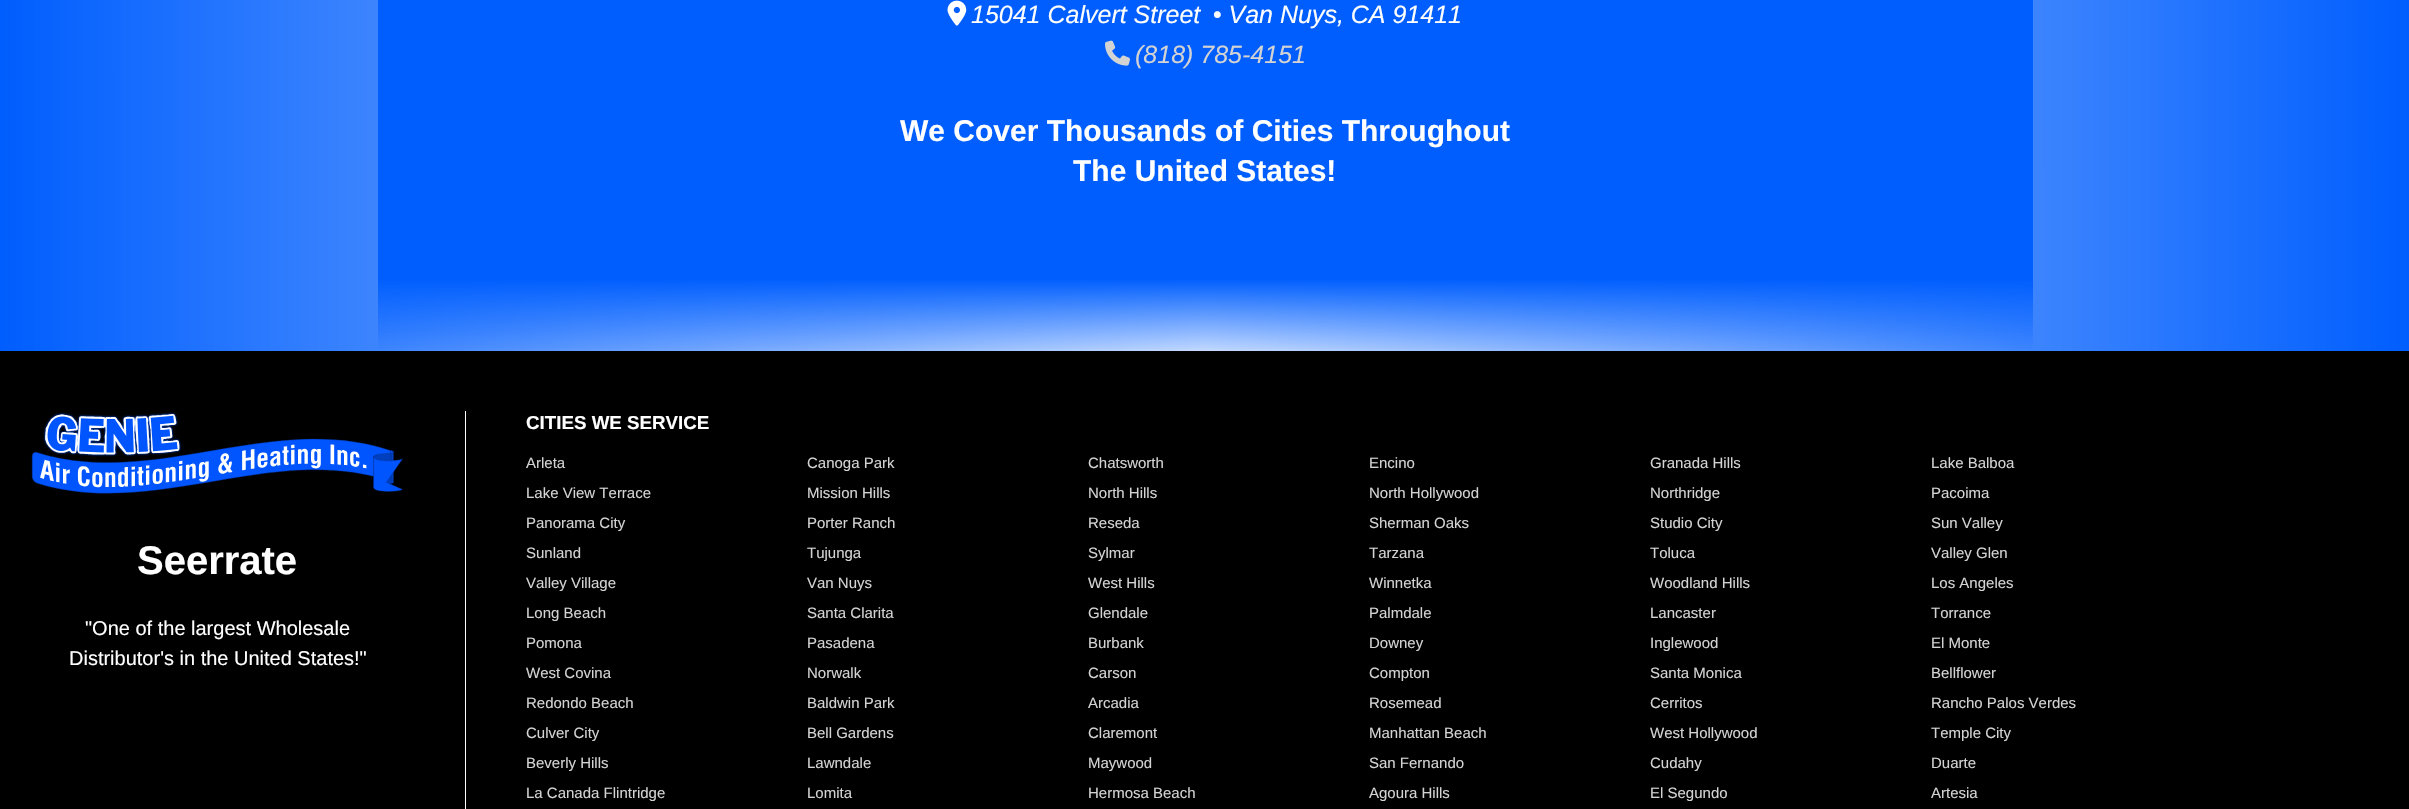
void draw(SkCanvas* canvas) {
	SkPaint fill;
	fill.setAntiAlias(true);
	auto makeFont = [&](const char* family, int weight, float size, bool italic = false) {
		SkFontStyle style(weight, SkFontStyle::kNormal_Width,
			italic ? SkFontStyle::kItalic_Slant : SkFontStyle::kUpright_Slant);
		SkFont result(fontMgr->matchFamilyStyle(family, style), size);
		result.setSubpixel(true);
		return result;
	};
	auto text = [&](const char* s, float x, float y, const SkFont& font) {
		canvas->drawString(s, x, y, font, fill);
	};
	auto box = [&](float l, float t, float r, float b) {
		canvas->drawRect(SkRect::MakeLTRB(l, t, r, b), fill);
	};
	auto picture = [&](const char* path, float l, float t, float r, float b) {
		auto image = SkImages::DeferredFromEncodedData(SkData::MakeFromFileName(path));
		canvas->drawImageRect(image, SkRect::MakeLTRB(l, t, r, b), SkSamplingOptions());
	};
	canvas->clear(0xFFFFFFFF);
	{
		const SkColor colors[] = {0xFF005EFE, 0xFFC2D9FF, 0xFF005EFE};
		const float stops[] = {0, 0.5f, 1};
		const SkPoint ends[] = {{0, 463}, {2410, 462}};
		fill.setShader(SkGradientShader::MakeLinear(ends, colors, stops, 3, SkTileMode::kClamp));
		fill.setAlpha(255);
	}
	box(0, 0, 2409, 351);
	fill.setShader(nullptr);
	fill.setColor(0xFF005EFE);
	box(378, 0, 2033, 271);
	picture("image0.png", 947, 0, 967, 26);
	picture("image1.png", 1105, 40, 1130, 66);
	{
		const SkColor colors[] = {0x00005EFE, 0xFF005EFE};
		const float stops[] = {0, 0.9f};
		const SkPoint ends[] = {{1205, 351}, {1205, 271}};
		fill.setShader(SkGradientShader::MakeLinear(ends, colors, stops, 2, SkTileMode::kClamp));
		fill.setAlpha(255);
	}
	box(378, 271, 2033, 349);
	fill.setShader(nullptr);
	fill.setColor(0xFF000000);
	box(0, 351, 2409, 809);
	fill.setColor(0xFFFFFFFF);
	box(465, 411, 466, 809);
	picture("image2.png", 31, 412, 403, 494);
	auto font1 = makeFont("Liberation Sans", 400, 25, true);
	text("15041 Calvert Street • Van Nuys, CA 91411", 971, 23, font1);
	fill.setColor(0xFFD3D3D3);
	text("(818) 785-4151", 1135, 63, font1);
	auto font2 = makeFont("Liberation Sans", 700, 30);
	fill.setColor(0xFFFFFFFF);
	text("We Cover Thousands of Cities Throughout", 900, 141, font2);
	text("The United States!", 1073, 181, font2);
	auto font3 = makeFont("Liberation Sans", 700, 40);
	text("Seerrate", 137, 574, font3);
	auto font4 = makeFont("Liberation Sans", 400, 20);
	text("\"One of the largest Wholesale", 85, 635, font4);
	text("Distributor's in the United States!\"", 69, 665, font4);
	auto font5 = makeFont("Liberation Sans", 700, 18.75f);
	text("CITIES WE SERVICE", 526, 429, font5);
	auto font6 = makeFont("Liberation Sans", 400, 15);
	fill.setColor(0xFFD3D3D3);
	text("Arleta", 526, 468, font6);
	text("Canoga Park", 807, 468, font6);
	text("Chatsworth", 1088, 468, font6);
	text("Encino", 1369, 468, font6);
	text("Granada Hills", 1650, 468, font6);
	text("Lake Balboa", 1931, 468, font6);
	text("Lake View Terrace", 526, 498, font6);
	text("Mission Hills", 807, 498, font6);
	text("North Hills", 1088, 498, font6);
	text("North Hollywood", 1369, 498, font6);
	text("Northridge", 1650, 498, font6);
	text("Pacoima", 1931, 498, font6);
	text("Panorama City", 526, 528, font6);
	text("Porter Ranch", 807, 528, font6);
	text("Reseda", 1088, 528, font6);
	text("Sherman Oaks", 1369, 528, font6);
	text("Studio City", 1650, 528, font6);
	text("Sun Valley", 1931, 528, font6);
	text("Sunland", 526, 558, font6);
	text("Tujunga", 807, 558, font6);
	text("Sylmar", 1088, 558, font6);
	text("Tarzana", 1369, 558, font6);
	text("Toluca", 1650, 558, font6);
	text("Valley Glen", 1931, 558, font6);
	text("Valley Village", 526, 588, font6);
	text("Van Nuys", 807, 588, font6);
	text("West Hills", 1088, 588, font6);
	text("Winnetka", 1369, 588, font6);
	text("Woodland Hills", 1650, 588, font6);
	text("Los Angeles", 1931, 588, font6);
	text("Long Beach", 526, 618, font6);
	text("Santa Clarita", 807, 618, font6);
	text("Glendale", 1088, 618, font6);
	text("Palmdale", 1369, 618, font6);
	text("Lancaster", 1650, 618, font6);
	text("Torrance", 1931, 618, font6);
	text("Pomona", 526, 648, font6);
	text("Pasadena", 807, 648, font6);
	text("Burbank", 1088, 648, font6);
	text("Downey", 1369, 648, font6);
	text("Inglewood", 1650, 648, font6);
	text("El Monte", 1931, 648, font6);
	text("West Covina", 526, 678, font6);
	text("Norwalk", 807, 678, font6);
	text("Carson", 1088, 678, font6);
	text("Compton", 1369, 678, font6);
	text("Santa Monica", 1650, 678, font6);
	text("Bellflower", 1931, 678, font6);
	text("Redondo Beach", 526, 708, font6);
	text("Baldwin Park", 807, 708, font6);
	text("Arcadia", 1088, 708, font6);
	text("Rosemead", 1369, 708, font6);
	text("Cerritos", 1650, 708, font6);
	text("Rancho Palos Verdes", 1931, 708, font6);
	text("Culver City", 526, 738, font6);
	text("Bell Gardens", 807, 738, font6);
	text("Claremont", 1088, 738, font6);
	text("Manhattan Beach", 1369, 738, font6);
	text("West Hollywood", 1650, 738, font6);
	text("Temple City", 1931, 738, font6);
	text("Beverly Hills", 526, 768, font6);
	text("Lawndale", 807, 768, font6);
	text("Maywood", 1088, 768, font6);
	text("San Fernando", 1369, 768, font6);
	text("Cudahy", 1650, 768, font6);
	text("Duarte", 1931, 768, font6);
	text("La Canada Flintridge", 526, 798, font6);
	text("Lomita", 807, 798, font6);
	text("Hermosa Beach", 1088, 798, font6);
	text("Agoura Hills", 1369, 798, font6);
	text("El Segundo", 1650, 798, font6);
	text("Artesia", 1931, 798, font6);
}
